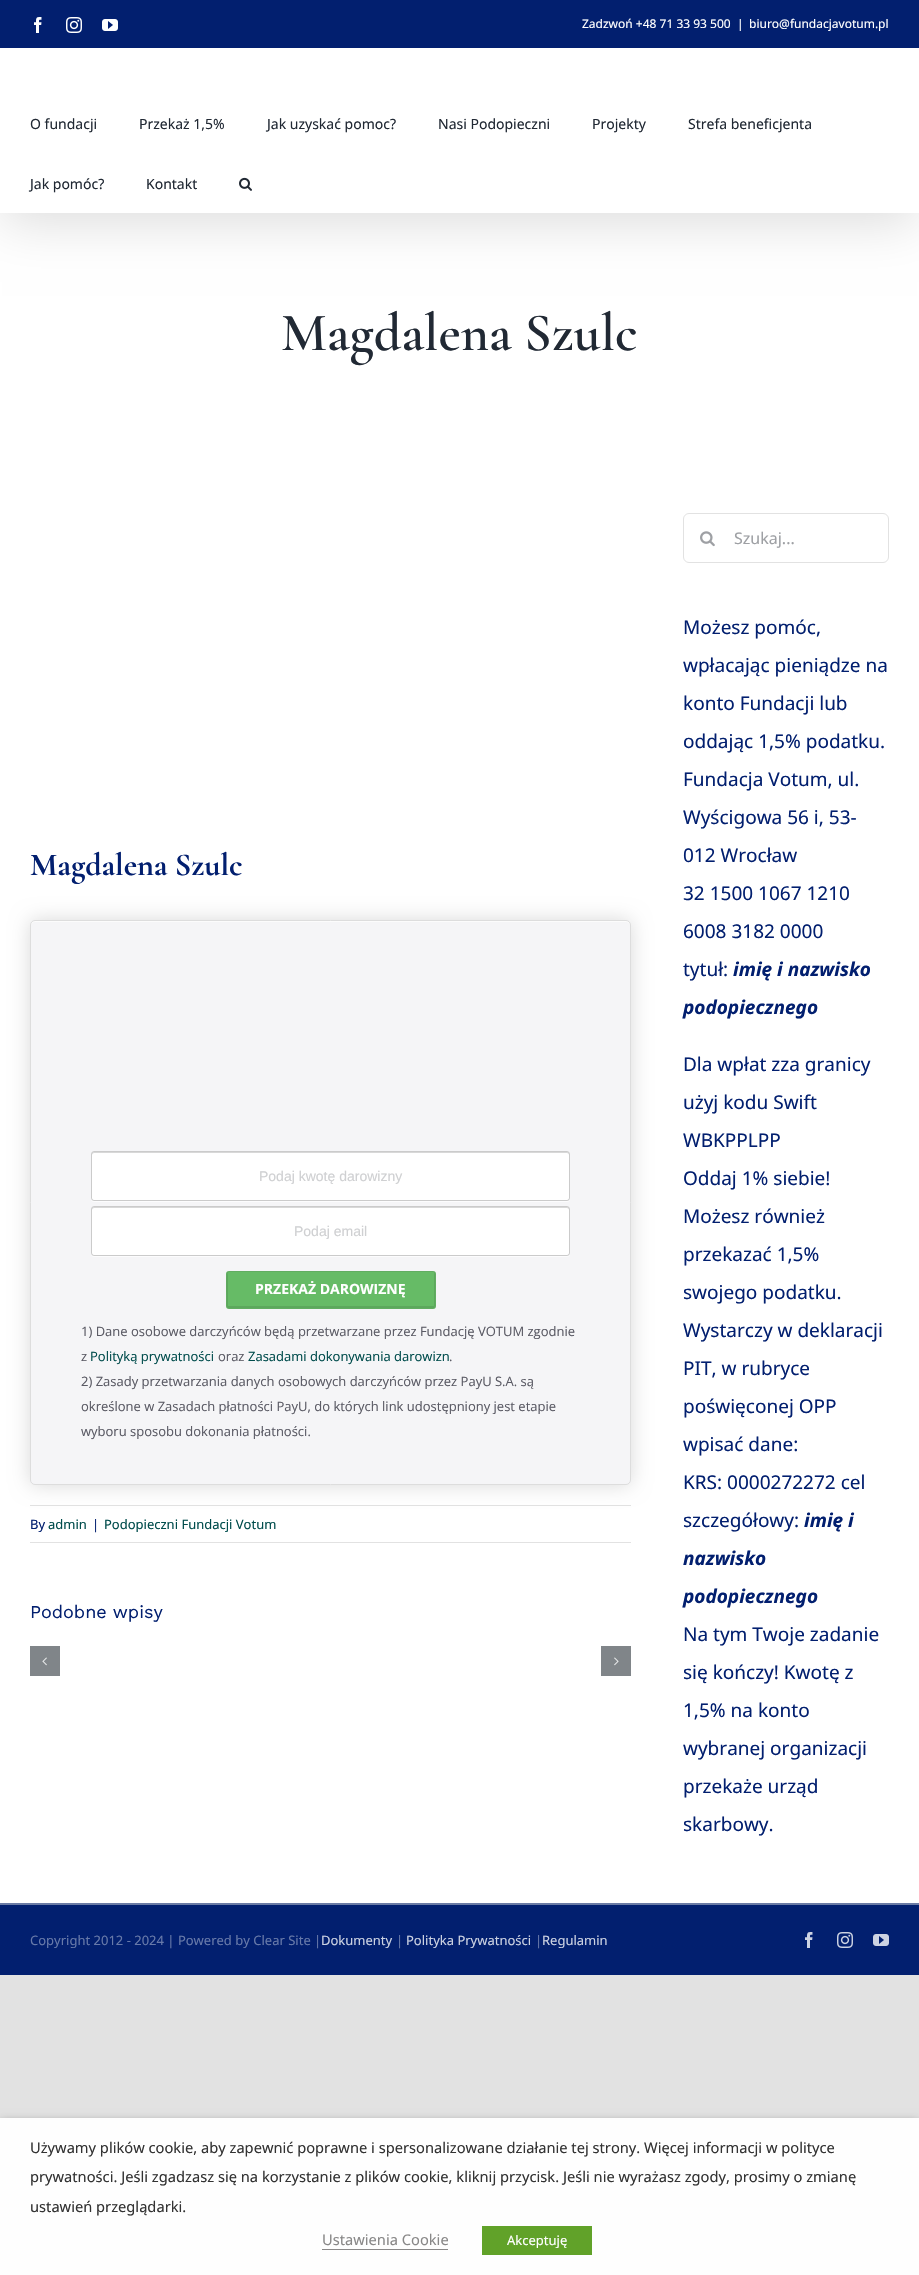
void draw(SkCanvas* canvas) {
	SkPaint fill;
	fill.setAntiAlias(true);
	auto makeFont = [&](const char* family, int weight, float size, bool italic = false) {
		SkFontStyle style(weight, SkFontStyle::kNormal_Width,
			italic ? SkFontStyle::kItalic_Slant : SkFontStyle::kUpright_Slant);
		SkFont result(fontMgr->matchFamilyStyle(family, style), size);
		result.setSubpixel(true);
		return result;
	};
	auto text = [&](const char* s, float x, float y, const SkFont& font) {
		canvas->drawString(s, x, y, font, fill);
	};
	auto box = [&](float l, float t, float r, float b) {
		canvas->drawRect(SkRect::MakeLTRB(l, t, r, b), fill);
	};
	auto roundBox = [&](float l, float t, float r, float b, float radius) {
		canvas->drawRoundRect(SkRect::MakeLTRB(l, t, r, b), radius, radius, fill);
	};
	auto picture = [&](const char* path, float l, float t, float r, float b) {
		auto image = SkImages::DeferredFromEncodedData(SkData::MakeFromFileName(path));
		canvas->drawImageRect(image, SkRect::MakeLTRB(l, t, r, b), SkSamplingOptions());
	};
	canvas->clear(0xFFE2E2E2);
	fill.setColor(0xFFFFFFFF);
	box(0, 213, 919, 1903);
	fill.setColor(0x24000000);
	fill.setMaskFilter(SkMaskFilter::MakeBlur(kNormal_SkBlurStyle, 25));
	canvas->drawRect(SkRect::MakeLTRB(2, 12, 917, 221), fill);
	fill.setMaskFilter(nullptr);
	fill.setColor(0xFF021F6F);
	box(0, 0, 919, 48);
	fill.setColor(0xFFFFFFFF);
	box(0, 48, 919, 213);
	picture("image0.png", 34, 17, 42, 33);
	picture("image1.png", 66, 17, 82, 33);
	picture("image2.png", 102, 19, 118, 31);
	picture("image3.png", 239, 177, 252, 191);
	fill.setColor(0xFFE2E2E2);
	box(30, 1505, 631, 1506);
	fill.setColor(0x26000000);
	fill.setMaskFilter(SkMaskFilter::MakeBlur(kNormal_SkBlurStyle, 10));
	canvas->drawRoundRect(SkRect::MakeLTRB(30, 920, 631, 1485), 5, 5, fill);
	fill.setMaskFilter(nullptr);
	fill.setColor(0xFFF5F5F7);
	roundBox(30, 920, 631, 1485, 5);
	fill.setColor(0xFFFCFCFC);
	canvas->drawPath(SkPathBuilder().moveTo(35, 922).lineTo(626, 922).cubicTo(628, 922, 630, 924, 630, 926).lineTo(630, 925).cubicTo(630, 923, 628, 921, 626, 921).lineTo(35, 921).cubicTo(33, 921, 31, 923, 31, 925).lineTo(31, 926).cubicTo(31, 924, 33, 922, 35, 922).close().detach(), fill);
	fill.setStyle(SkPaint::kStroke_Style);
	fill.setStrokeWidth(1);
	fill.setColor(0xFFDDDDDD);
	canvas->drawRoundRect(SkRect::MakeLTRB(30.5f, 920.5f, 630.5f, 1484.5f), 4.5f, 4.5f, fill);
	fill.setStyle(SkPaint::kFill_Style);
	fill.setColor(0xFFFCFCFD);
	canvas->drawPath(SkPathBuilder().moveTo(91, 1198).lineTo(91, 1199).cubicTo(91, 1201, 92, 1202, 94, 1202).lineTo(567, 1202).cubicTo(569, 1202, 570, 1201, 570, 1199).lineTo(570, 1198).cubicTo(570, 1200, 569, 1201, 567, 1201).lineTo(94, 1201).cubicTo(92, 1201, 91, 1200, 91, 1198).close().detach(), fill);
	fill.setColor(0xFFFFFFFF);
	roundBox(91, 1151, 570, 1201, 3);
	fill.setColor(0xFFD8D8D8);
	canvas->drawPath(SkPathBuilder().moveTo(94, 1153).lineTo(567, 1153).cubicTo(568, 1153, 569, 1154, 569, 1155).lineTo(569, 1154).cubicTo(569, 1153, 568, 1152, 567, 1152).lineTo(94, 1152).cubicTo(93, 1152, 92, 1153, 92, 1154).lineTo(92, 1155).cubicTo(92, 1154, 93, 1153, 94, 1153).close().detach(), fill);
	fill.setStyle(SkPaint::kStroke_Style);
	fill.setColor(0x667D7D7D);
	canvas->drawRoundRect(SkRect::MakeLTRB(91.5f, 1151.5f, 569.5f, 1200.5f), 2.5f, 2.5f, fill);
	fill.setStyle(SkPaint::kFill_Style);
	fill.setColor(0xFFFCFCFD);
	canvas->drawPath(SkPathBuilder().moveTo(91, 1253).lineTo(91, 1254).cubicTo(91, 1256, 92, 1257, 94, 1257).lineTo(567, 1257).cubicTo(569, 1257, 570, 1256, 570, 1254).lineTo(570, 1253).cubicTo(570, 1255, 569, 1256, 567, 1256).lineTo(94, 1256).cubicTo(92, 1256, 91, 1255, 91, 1253).close().detach(), fill);
	fill.setColor(0xFFFFFFFF);
	roundBox(91, 1206, 570, 1256, 3);
	fill.setColor(0xFFD8D8D8);
	canvas->drawPath(SkPathBuilder().moveTo(94, 1208).lineTo(567, 1208).cubicTo(568, 1208, 569, 1209, 569, 1210).lineTo(569, 1209).cubicTo(569, 1208, 568, 1207, 567, 1207).lineTo(94, 1207).cubicTo(93, 1207, 92, 1208, 92, 1209).lineTo(92, 1210).cubicTo(92, 1209, 93, 1208, 94, 1208).close().detach(), fill);
	fill.setStyle(SkPaint::kStroke_Style);
	fill.setColor(0x667D7D7D);
	canvas->drawRoundRect(SkRect::MakeLTRB(91.5f, 1206.5f, 569.5f, 1255.5f), 2.5f, 2.5f, fill);
	fill.setStyle(SkPaint::kFill_Style);
	fill.setColor(0xFF66BB66);
	roundBox(226, 1271, 436, 1309, 3);
	fill.setColor(0xFF5CA85C);
	canvas->drawPath(SkPathBuilder().moveTo(434, 1272).lineTo(434, 1305).cubicTo(434, 1306, 434, 1306, 433, 1306).lineTo(229, 1306).cubicTo(228, 1306, 228, 1306, 228, 1305).lineTo(228, 1272).cubicTo(226, 1274, 227, 1292, 227, 1295).lineTo(227, 1301).cubicTo(227, 1302, 226, 1308, 229, 1308).lineTo(434, 1308).lineTo(435, 1306).lineTo(435, 1274).close().detach(), fill);
	fill.setStyle(SkPaint::kStroke_Style);
	fill.setColor(0x1A333333);
	canvas->drawRoundRect(SkRect::MakeLTRB(226.5f, 1271.5f, 435.5f, 1308.5f), 2.5f, 2.5f, fill);
	fill.setStyle(SkPaint::kFill_Style);
	fill.setColor(0xFFE2E2E2);
	box(30, 1542, 631, 1543);
	fill.setColor(0xFF808589);
	box(30, 1646, 60, 1676);
	picture("image4.png", 42, 1657, 47, 1666);
	box(601, 1646, 631, 1676);
	picture("image5.png", 614, 1657, 619, 1666);
	fill.setStyle(SkPaint::kStroke_Style);
	fill.setColor(0xFFE2E2E2);
	canvas->drawRoundRect(SkRect::MakeLTRB(683.5f, 513.5f, 888.5f, 562.5f), 5.5f, 5.5f, fill);
	picture("image6.png", 700, 531, 715, 547);
	fill.setStyle(SkPaint::kFill_Style);
	fill.setColor(0xFF6B7BA5);
	box(0, 1903, 919, 1905);
	fill.setColor(0xFF021F6F);
	box(0, 1905, 919, 1975);
	picture("image7.png", 805, 1932, 813, 1948);
	picture("image8.png", 837, 1932, 853, 1948);
	picture("image9.png", 873, 1934, 889, 1946);
	fill.setColor(0x80000000);
	fill.setMaskFilter(SkMaskFilter::MakeBlur(kNormal_SkBlurStyle, 5));
	canvas->drawRect(SkRect::MakeLTRB(0, 2123, 919, 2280), fill);
	fill.setMaskFilter(nullptr);
	fill.setColor(0xFFFEFEFE);
	box(0, 2118, 919, 2275);
	fill.setColor(0xFF898888);
	box(322, 2249, 448, 2250);
	fill.setColor(0xFF61A229);
	box(482, 2226, 592, 2255);
	auto font1 = makeFont("Noto Sans", 400, 12);
	fill.setColor(0xFFFFFFFF);
	text("Zadzwoń +48 71 33 93 500", 582, 28, font1);
	text("|", 737, 28, font1);
	text("biuro@fundacjavotum.pl", 749, 28, font1);
	auto font2 = makeFont("Noto Sans", 400, 14);
	fill.setColor(0xFF212934);
	text("O fundacji", 30, 129, font2);
	text("Przekaż 1,5%", 139, 129, font2);
	text("Jak uzyskać pomoc?", 267, 129, font2);
	text("Nasi Podopieczni", 438, 129, font2);
	text("Projekty", 592, 129, font2);
	text("Strefa beneficjenta", 688, 129, font2);
	text("Jak pomóc?", 30, 189, font2);
	text("Kontakt", 146, 189, font2);
	auto font3 = makeFont("Cormorant Garamond", 600, 54);
	text("Magdalena Szulc", 281, 350, font3);
	auto font4 = makeFont("Cormorant Garamond", 700, 32);
	fill.setColor(0xFF021F6F);
	text("Magdalena Szulc", 30, 875, font4);
	auto font5 = makeFont("Liberation Sans", 400, 14);
	fill.setColor(0xFFCFD0D2);
	text("Podaj kwotę darowizny", 259, 1181, font5);
	text("Podaj email", 294, 1236, font5);
	auto font6 = makeFont("Open Sans", 700, 14);
	fill.setColor(0xFFFFFFFF);
	text("PRZEKAŻ DAROWIZNĘ", 255, 1294, font6);
	auto font7 = makeFont("Open Sans", 400, 13);
	fill.setColor(0xFF5B5B65);
	text("1) Dane osobowe darczyńców będą przetwarzane przez Fundację VOTUM zgodnie", 81, 1336, font7);
	text("z", 81, 1361, font7);
	fill.setColor(0xFF004C4C);
	text("Polityką prywatności", 90, 1361, font7);
	fill.setColor(0xFF5B5B65);
	text("oraz", 218, 1361, font7);
	fill.setColor(0xFF004C4C);
	text("Zasadami dokonywania darowizn", 248, 1361, font7);
	fill.setColor(0xFF5B5B65);
	text(".", 449, 1361, font7);
	text("2) Zasady przetwarzania danych osobowych darczyńców przez PayU S.A. są", 81, 1386, font7);
	text("określone w Zasadach płatności PayU, do których link udostępniony jest etapie", 81, 1411, font7);
	text("wyboru sposobu dokonania płatności.", 81, 1436, font7);
	auto font8 = makeFont("Noto Sans", 400, 13);
	fill.setColor(0xFF021F6F);
	text("By", 30, 1529, font8);
	fill.setColor(0xFF004C4C);
	text("admin", 48, 1529, font8);
	fill.setColor(0xFF021F6F);
	text("|", 92, 1529, font8);
	fill.setColor(0xFF004C4C);
	text("Podopieczni Fundacji Votum", 104, 1529, font8);
	auto font9 = makeFont("Work Sans", 400, 18);
	fill.setColor(0xFF021F6F);
	text("Podobne wpisy", 30, 1618, font9);
	auto font10 = makeFont("Noto Sans", 400, 16);
	fill.setColor(0xFF9EA0A4);
	text("Szukaj...", 734, 544, font10);
	auto font11 = makeFont("Noto Sans", 400, 19);
	fill.setColor(0xFF021F6F);
	text("Możesz pomóc,", 683, 634, font11);
	text("wpłacając pieniądze na", 683, 672, font11);
	text("konto Fundacji lub", 683, 710, font11);
	text("oddając 1,5% podatku.", 683, 748, font11);
	text("Fundacja Votum, ul.", 683, 786, font11);
	text("Wyścigowa 56 i, 53-", 683, 824, font11);
	text("012 Wrocław", 683, 862, font11);
	text("32 1500 1067 1210", 683, 900, font11);
	text("6008 3182 0000", 683, 938, font11);
	text("tytuł:", 683, 976, font11);
	auto font12 = makeFont("Noto Sans", 700, 19, true);
	text("imię i nazwisko", 733, 976, font12);
	text("podopiecznego", 683, 1014, font12);
	text("Dla wpłat zza granicy", 683, 1071, font11);
	text("użyj kodu Swift", 683, 1109, font11);
	text("WBKPPLPP", 683, 1147, font11);
	text("Oddaj 1% siebie!", 683, 1185, font11);
	text("Możesz również", 683, 1223, font11);
	text("przekazać 1,5%", 683, 1261, font11);
	text("swojego podatku.", 683, 1299, font11);
	text("Wystarczy w deklaracji", 683, 1337, font11);
	text("PIT, w rubryce", 683, 1375, font11);
	text("poświęconej OPP", 683, 1413, font11);
	text("wpisać dane:", 683, 1451, font11);
	text("KRS: 0000272272 cel", 683, 1489, font11);
	text("szczegółowy:", 683, 1527, font11);
	text("imię i", 804, 1527, font12);
	text("nazwisko", 683, 1565, font12);
	text("podopiecznego", 683, 1603, font12);
	text("Na tym Twoje zadanie", 683, 1641, font11);
	text("się kończy! Kwotę z", 683, 1679, font11);
	text("1,5% na konto", 683, 1717, font11);
	text("wybranej organizacji", 683, 1755, font11);
	text("przekaże urząd", 683, 1793, font11);
	text("skarbowy.", 683, 1831, font11);
	fill.setColor(0xFF6779A9);
	text("Copyright 2012 - 2024 | Powered by Clear Site |", 30, 1945, font8);
	fill.setColor(0xFFCCD2E2);
	text("Dokumenty", 321, 1945, font8);
	fill.setColor(0xFF6779A9);
	text("|", 396, 1945, font8);
	fill.setColor(0xFFCCD2E2);
	text("Polityka Prywatności", 406, 1945, font8);
	fill.setColor(0xFF6779A9);
	text("|", 535, 1945, font8);
	fill.setColor(0xFFCCD2E2);
	text("Regulamin", 542, 1945, font8);
	auto font13 = makeFont("Noto Sans", 400, 14.67f);
	fill.setColor(0xFF333333);
	text("Używamy plików cookie, aby zapewnić poprawne i spersonalizowane działanie tej strony. Więcej informacji w polityce", 30, 2153, font13);
	text("prywatności. Jeśli zgadzasz się na korzystanie z plików cookie, kliknij przycisk. Jeśli nie wyrażasz zgody, prosimy o zmianę", 30, 2182, font13);
	text("ustawień przeglądarki.", 30, 2212, font13);
	fill.setColor(0xFF898888);
	text("Ustawienia Cookie", 322, 2245, font13);
	fill.setColor(0xFFFFFFFF);
	text("Akceptuję", 507, 2245, font8);
}
